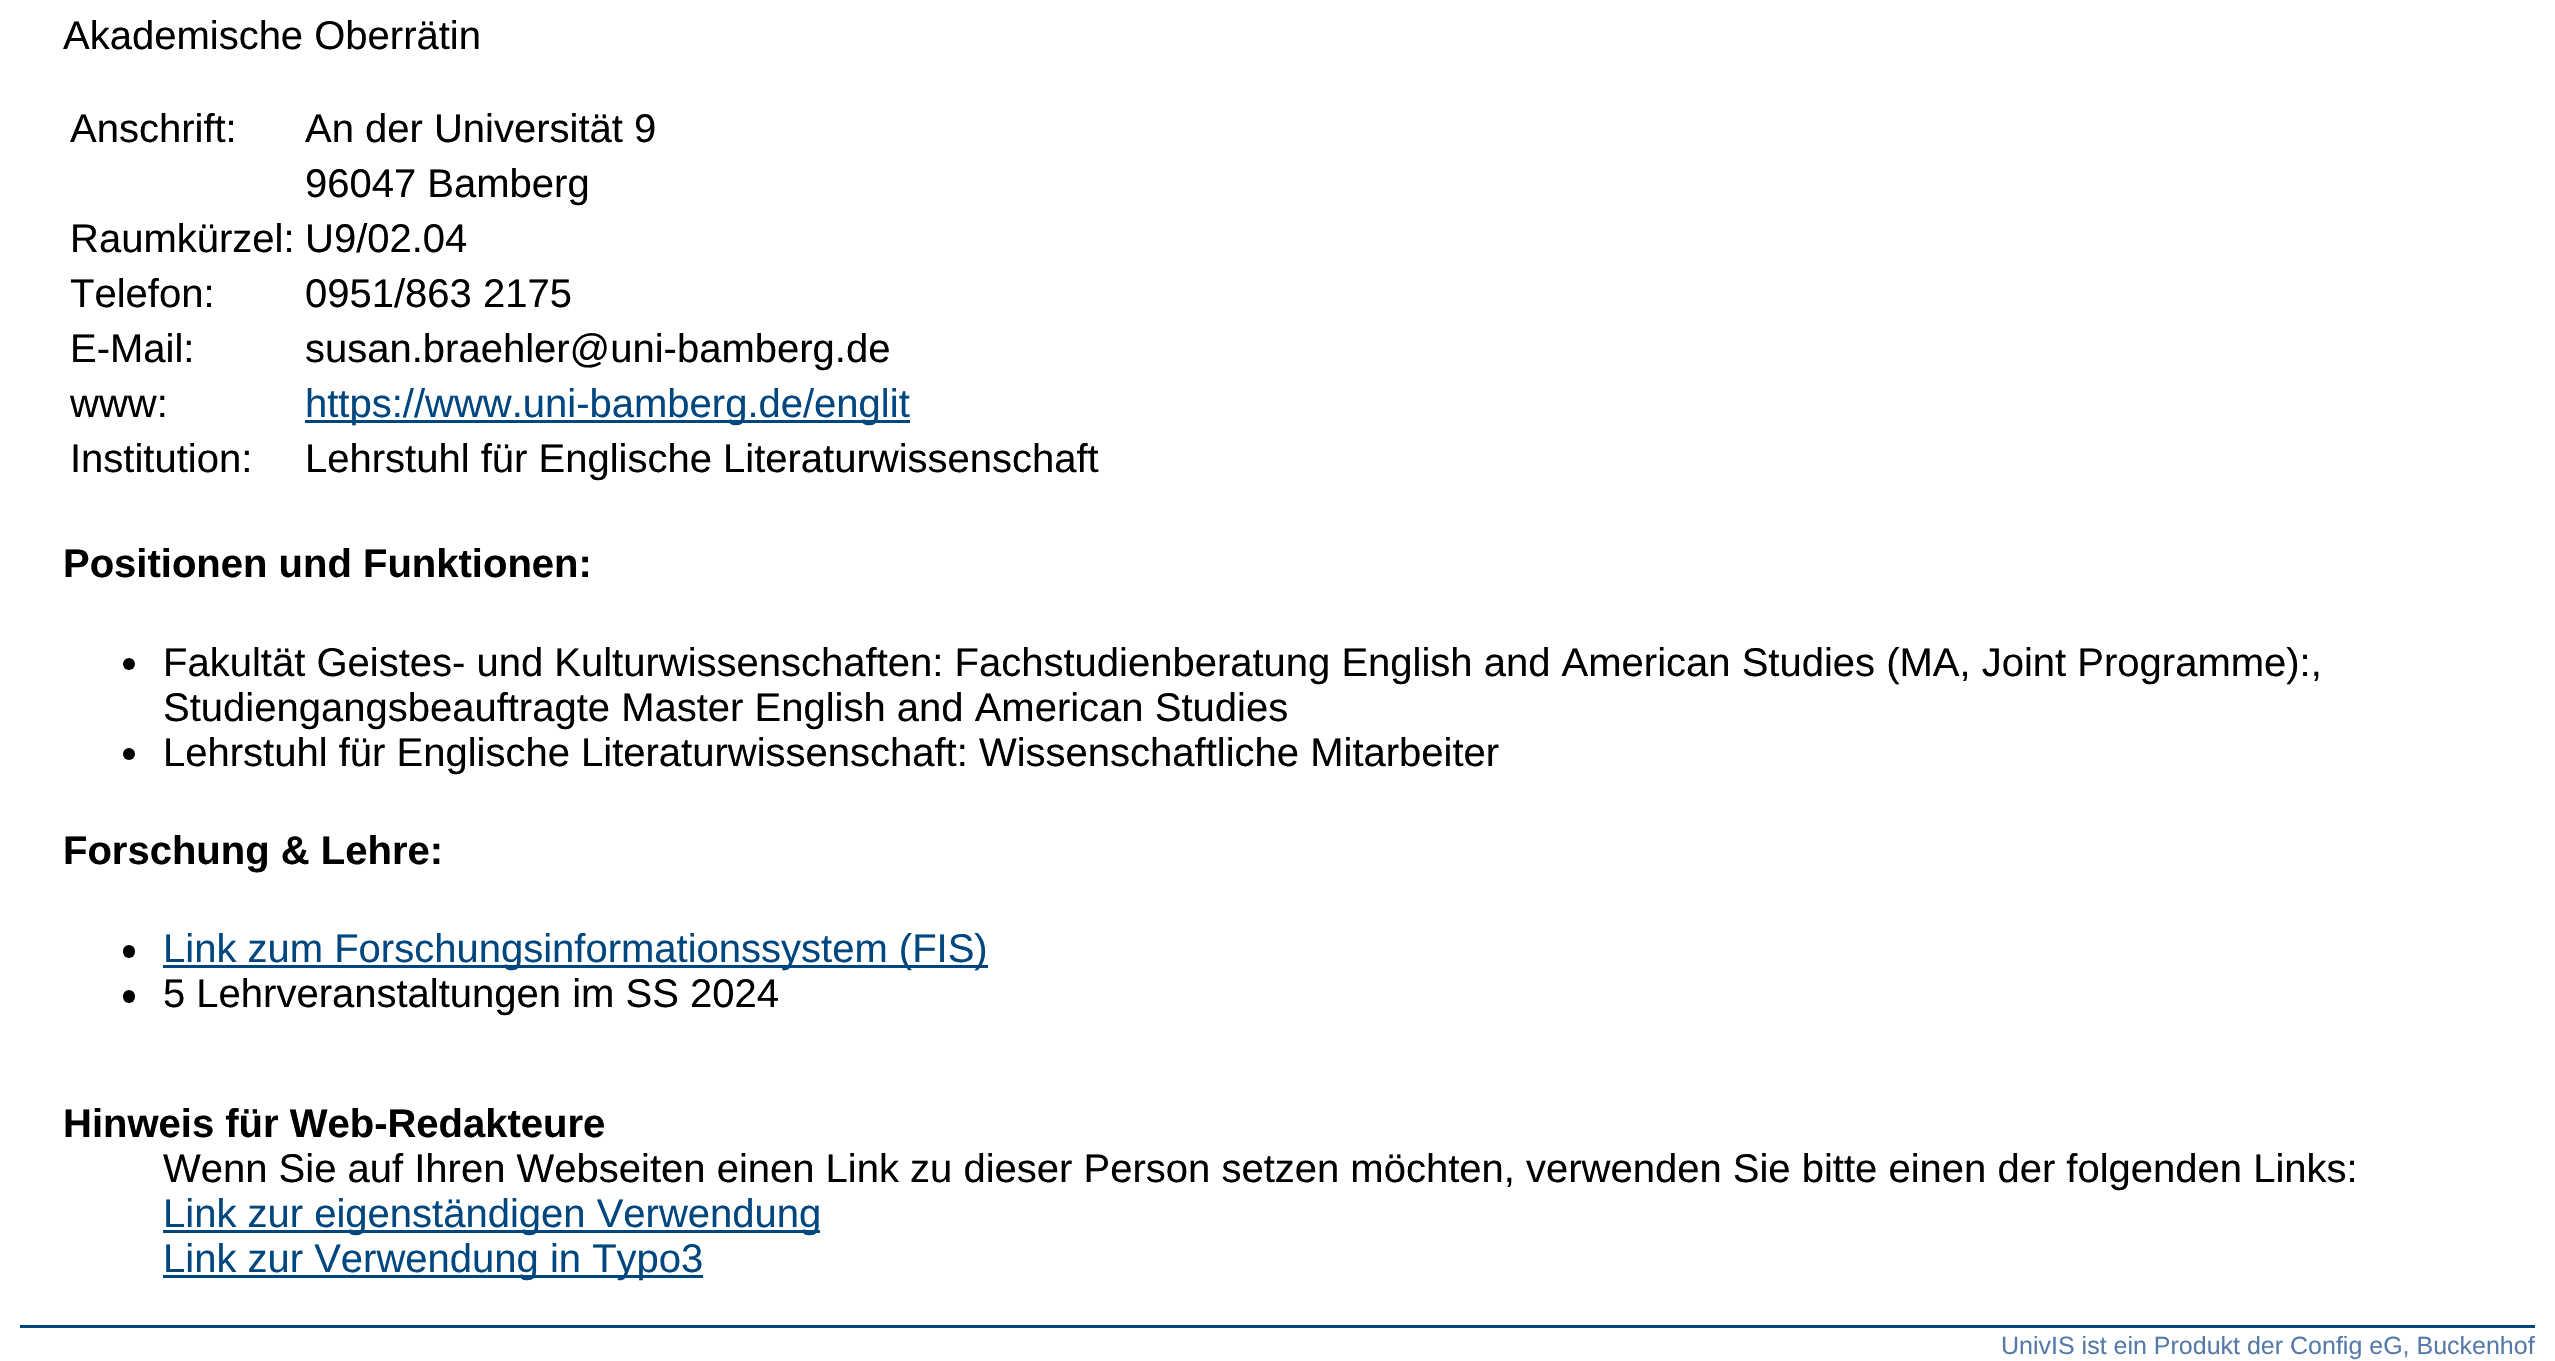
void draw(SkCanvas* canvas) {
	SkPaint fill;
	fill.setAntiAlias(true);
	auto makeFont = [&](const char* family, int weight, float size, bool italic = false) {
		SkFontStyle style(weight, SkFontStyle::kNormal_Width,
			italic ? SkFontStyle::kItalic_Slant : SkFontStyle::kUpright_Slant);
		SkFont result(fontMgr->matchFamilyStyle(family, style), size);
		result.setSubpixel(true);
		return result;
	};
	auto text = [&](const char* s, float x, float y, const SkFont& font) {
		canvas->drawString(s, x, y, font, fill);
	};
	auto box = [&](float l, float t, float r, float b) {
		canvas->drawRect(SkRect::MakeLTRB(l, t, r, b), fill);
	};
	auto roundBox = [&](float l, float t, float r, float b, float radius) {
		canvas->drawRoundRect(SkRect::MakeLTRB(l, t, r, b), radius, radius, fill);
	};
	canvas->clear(0xFFFFFFFF);
	fill.setColor(0xFF00467F);
	box(305, 420, 910, 423);
	fill.setColor(0xFF000000);
	canvas->drawCircle(129, 664, 6, fill);
	canvas->drawCircle(129, 754, 6, fill);
	roundBox(123, 945, 135, 958, 6);
	fill.setColor(0xFF00467F);
	box(163, 965, 988, 968);
	fill.setColor(0xFF000000);
	roundBox(123, 990, 135, 1003, 6);
	fill.setColor(0xFF00467F);
	box(163, 1230, 820, 1233);
	box(163, 1275, 703, 1278);
	box(20, 1325, 2535, 1328);
	auto font1 = makeFont("Liberation Sans", 400, 40);
	fill.setColor(0xFF000000);
	text("Akademische Oberrätin", 63, 49, font1);
	text("Anschrift:", 70, 142, font1);
	text("An der Universität 9", 305, 142, font1);
	text("96047 Bamberg", 305, 197, font1);
	text("Raumkürzel:", 70, 252, font1);
	text("U9/02.04", 305, 252, font1);
	text("Telefon:", 70, 307, font1);
	text("0951/863 2175", 305, 307, font1);
	text("E-Mail:", 70, 362, font1);
	text("susan.braehler@uni-bamberg.de", 305, 362, font1);
	text("www:", 70, 417, font1);
	fill.setColor(0xFF00467F);
	text("https://www.uni-bamberg.de/englit", 305, 417, font1);
	fill.setColor(0xFF000000);
	text("Institution:", 70, 472, font1);
	text("Lehrstuhl für Englische Literaturwissenschaft", 305, 472, font1);
	auto font2 = makeFont("Liberation Sans", 700, 40);
	text("Positionen und Funktionen:", 63, 577, font2);
	text("Fakultät Geistes- und Kulturwissenschaften: Fachstudienberatung English and American Studies (MA, Joint Programme):,", 163, 676, font1);
	text("Studiengangsbeauftragte Master English and American Studies", 163, 721, font1);
	text("Lehrstuhl für Englische Literaturwissenschaft: Wissenschaftliche Mitarbeiter", 163, 766, font1);
	text("Forschung & Lehre:", 63, 864, font2);
	fill.setColor(0xFF00467F);
	text("Link zum Forschungsinformationssystem (FIS)", 163, 962, font1);
	fill.setColor(0xFF000000);
	text("5 Lehrveranstaltungen im SS 2024", 163, 1007, font1);
	text("Hinweis für Web-Redakteure", 63, 1137, font2);
	text("Wenn Sie auf Ihren Webseiten einen Link zu dieser Person setzen möchten, verwenden Sie bitte einen der folgenden Links:", 163, 1182, font1);
	fill.setColor(0xFF00467F);
	text("Link zur eigenständigen Verwendung", 163, 1227, font1);
	text("Link zur Verwendung in Typo3", 163, 1272, font1);
	auto font3 = makeFont("Liberation Sans", 400, 25);
	fill.setColor(0xFF557AA9);
	text("UnivIS ist ein Produkt der Config eG, Buckenhof", 2001, 1354, font3);
}
